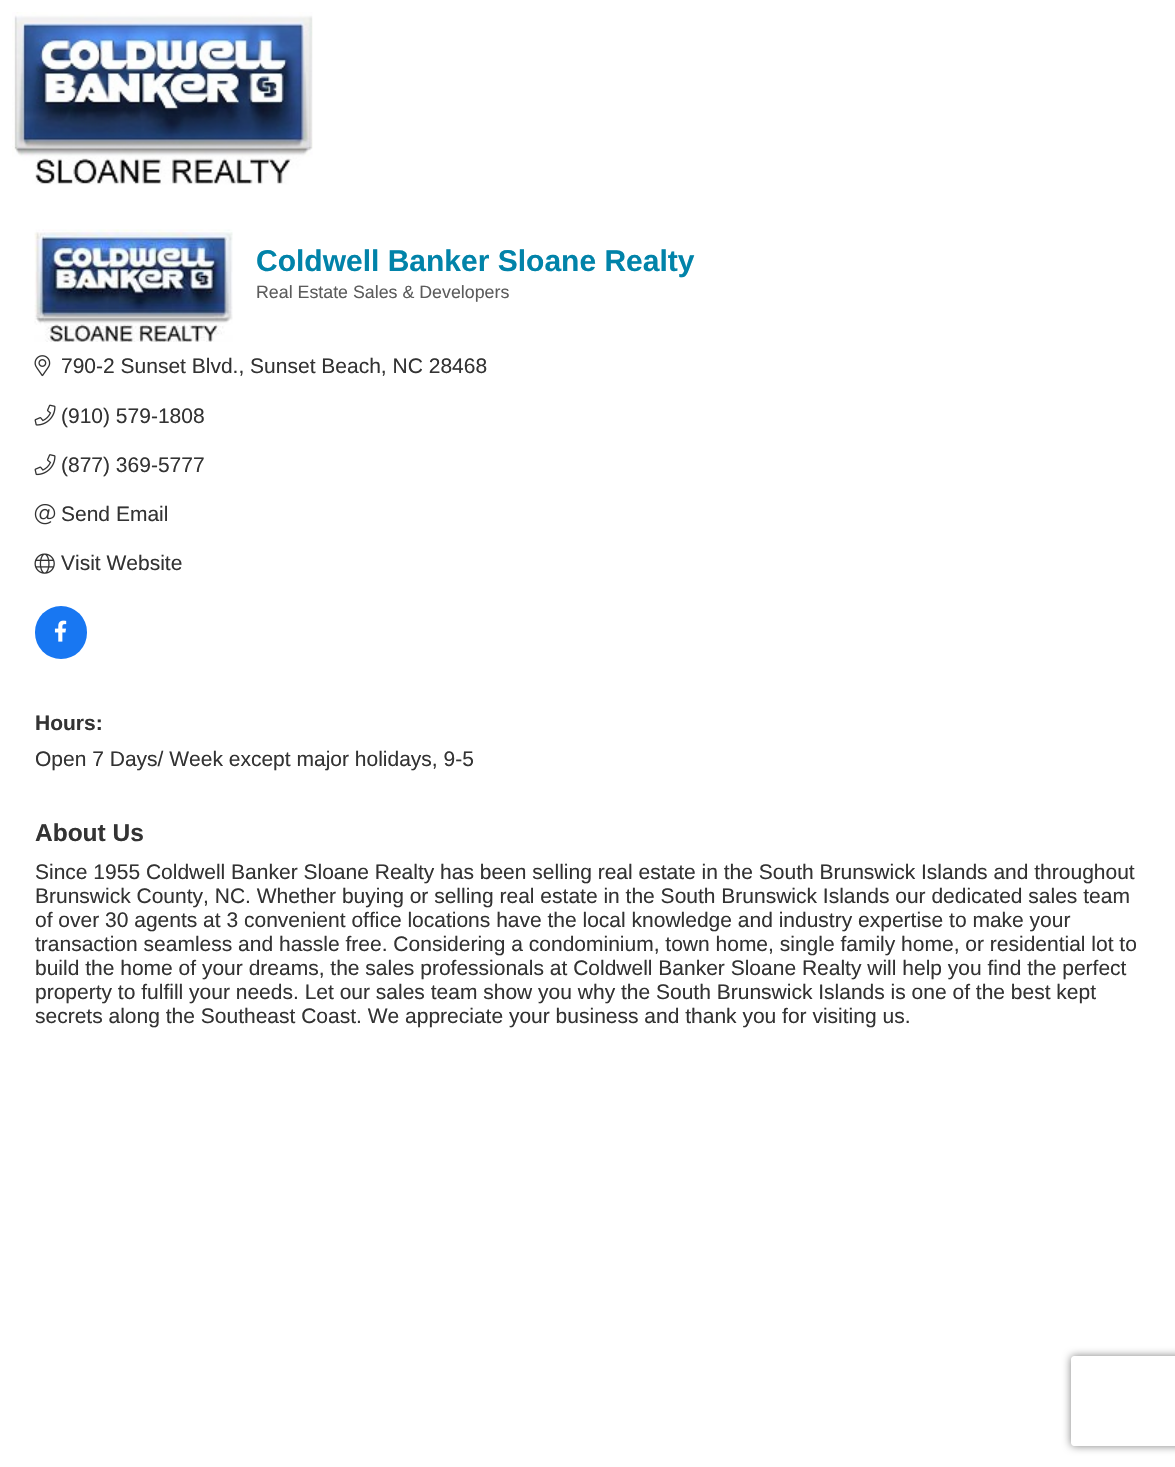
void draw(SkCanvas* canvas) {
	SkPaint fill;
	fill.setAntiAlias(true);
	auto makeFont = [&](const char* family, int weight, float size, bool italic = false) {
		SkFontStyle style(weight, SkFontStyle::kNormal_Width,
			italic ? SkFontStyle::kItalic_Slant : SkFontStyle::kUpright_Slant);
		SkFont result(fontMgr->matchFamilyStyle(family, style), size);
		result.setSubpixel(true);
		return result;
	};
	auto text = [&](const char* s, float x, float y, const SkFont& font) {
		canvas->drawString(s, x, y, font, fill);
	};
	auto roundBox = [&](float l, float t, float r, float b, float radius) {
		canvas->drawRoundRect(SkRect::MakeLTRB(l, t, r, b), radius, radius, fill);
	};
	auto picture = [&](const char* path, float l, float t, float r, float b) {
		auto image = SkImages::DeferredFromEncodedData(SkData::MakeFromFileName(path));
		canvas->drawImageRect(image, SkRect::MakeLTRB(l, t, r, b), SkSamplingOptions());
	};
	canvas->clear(0xFFFFFFFF);
	picture("image0.png", 12, 12, 313, 185);
	picture("image1.png", 34, 229, 233, 342);
	picture("image2.png", 34, 355, 51, 377);
	picture("image3.png", 34, 404, 56, 426);
	picture("image4.png", 34, 454, 56, 476);
	picture("image5.png", 34, 504, 56, 525);
	picture("image6.png", 34, 553, 55, 574);
	fill.setColor(0xFF1877F2);
	roundBox(35, 606, 87, 659, 26);
	picture("image7.png", 54, 620, 67, 642);
	canvas->save();
	canvas->clipPath(SkPathBuilder(SkPathFillType::kEvenOdd).moveTo(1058, 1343).lineTo(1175, 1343).lineTo(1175, 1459).lineTo(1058, 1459).close().moveTo(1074, 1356).lineTo(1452, 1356).cubicTo(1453.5f, 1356, 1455, 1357.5f, 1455, 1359).lineTo(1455, 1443).cubicTo(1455, 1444.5f, 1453.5f, 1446, 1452, 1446).lineTo(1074, 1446).cubicTo(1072.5f, 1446, 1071, 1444.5f, 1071, 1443).lineTo(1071, 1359).cubicTo(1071, 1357.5f, 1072.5f, 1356, 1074, 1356).close().detach(), true);
	fill.setColor(0xFF808080);
	fill.setMaskFilter(SkMaskFilter::MakeBlur(kNormal_SkBlurStyle, 4));
	canvas->drawRoundRect(SkRect::MakeLTRB(1071, 1356, 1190, 1446), 3, 3, fill);
	fill.setMaskFilter(nullptr);
	canvas->restore();
	auto font1 = makeFont("Liberation Sans", 700, 30);
	fill.setColor(0xFF0183A9);
	text("Coldwell Banker Sloane Realty", 256, 271, font1);
	auto font2 = makeFont("Liberation Sans", 400, 17.8f);
	fill.setColor(0xFF5C5C5C);
	text("Real Estate Sales & Developers", 256, 298, font2);
	auto font3 = makeFont("Liberation Sans", 400, 21);
	fill.setColor(0xFF333333);
	text("790-2 Sunset Blvd., Sunset Beach, NC 28468", 61, 373, font3);
	text("(910) 579-1808", 61, 423, font3);
	text("(877) 369-5777", 61, 472, font3);
	text("Send Email", 61, 521, font3);
	text("Visit Website", 61, 570, font3);
	auto font4 = makeFont("Liberation Sans", 700, 21);
	text("Hours:", 35, 730, font4);
	text("Open 7 Days/ Week except major holidays, 9-5", 35, 766, font3);
	auto font5 = makeFont("Liberation Sans", 700, 24.5f);
	text("About Us", 35, 841, font5);
	text("Since 1955 Coldwell Banker Sloane Realty has been selling real estate in the South Brunswick Islands and throughout", 35, 879, font3);
	text("Brunswick County, NC. Whether buying or selling real estate in the South Brunswick Islands our dedicated sales team", 35, 903, font3);
	text("of over 30 agents at 3 convenient office locations have the local knowledge and industry expertise to make your", 35, 927, font3);
	text("transaction seamless and hassle free. Considering a condominium, town home, single family home, or residential lot to", 35, 951, font3);
	text("build the home of your dreams, the sales professionals at Coldwell Banker Sloane Realty will help you find the perfect", 35, 975, font3);
	text("property to fulfill your needs. Let our sales team show you why the South Brunswick Islands is one of the best kept", 35, 999, font3);
	text("secrets along the Southeast Coast. We appreciate your business and thank you for visiting us.", 35, 1023, font3);
}
